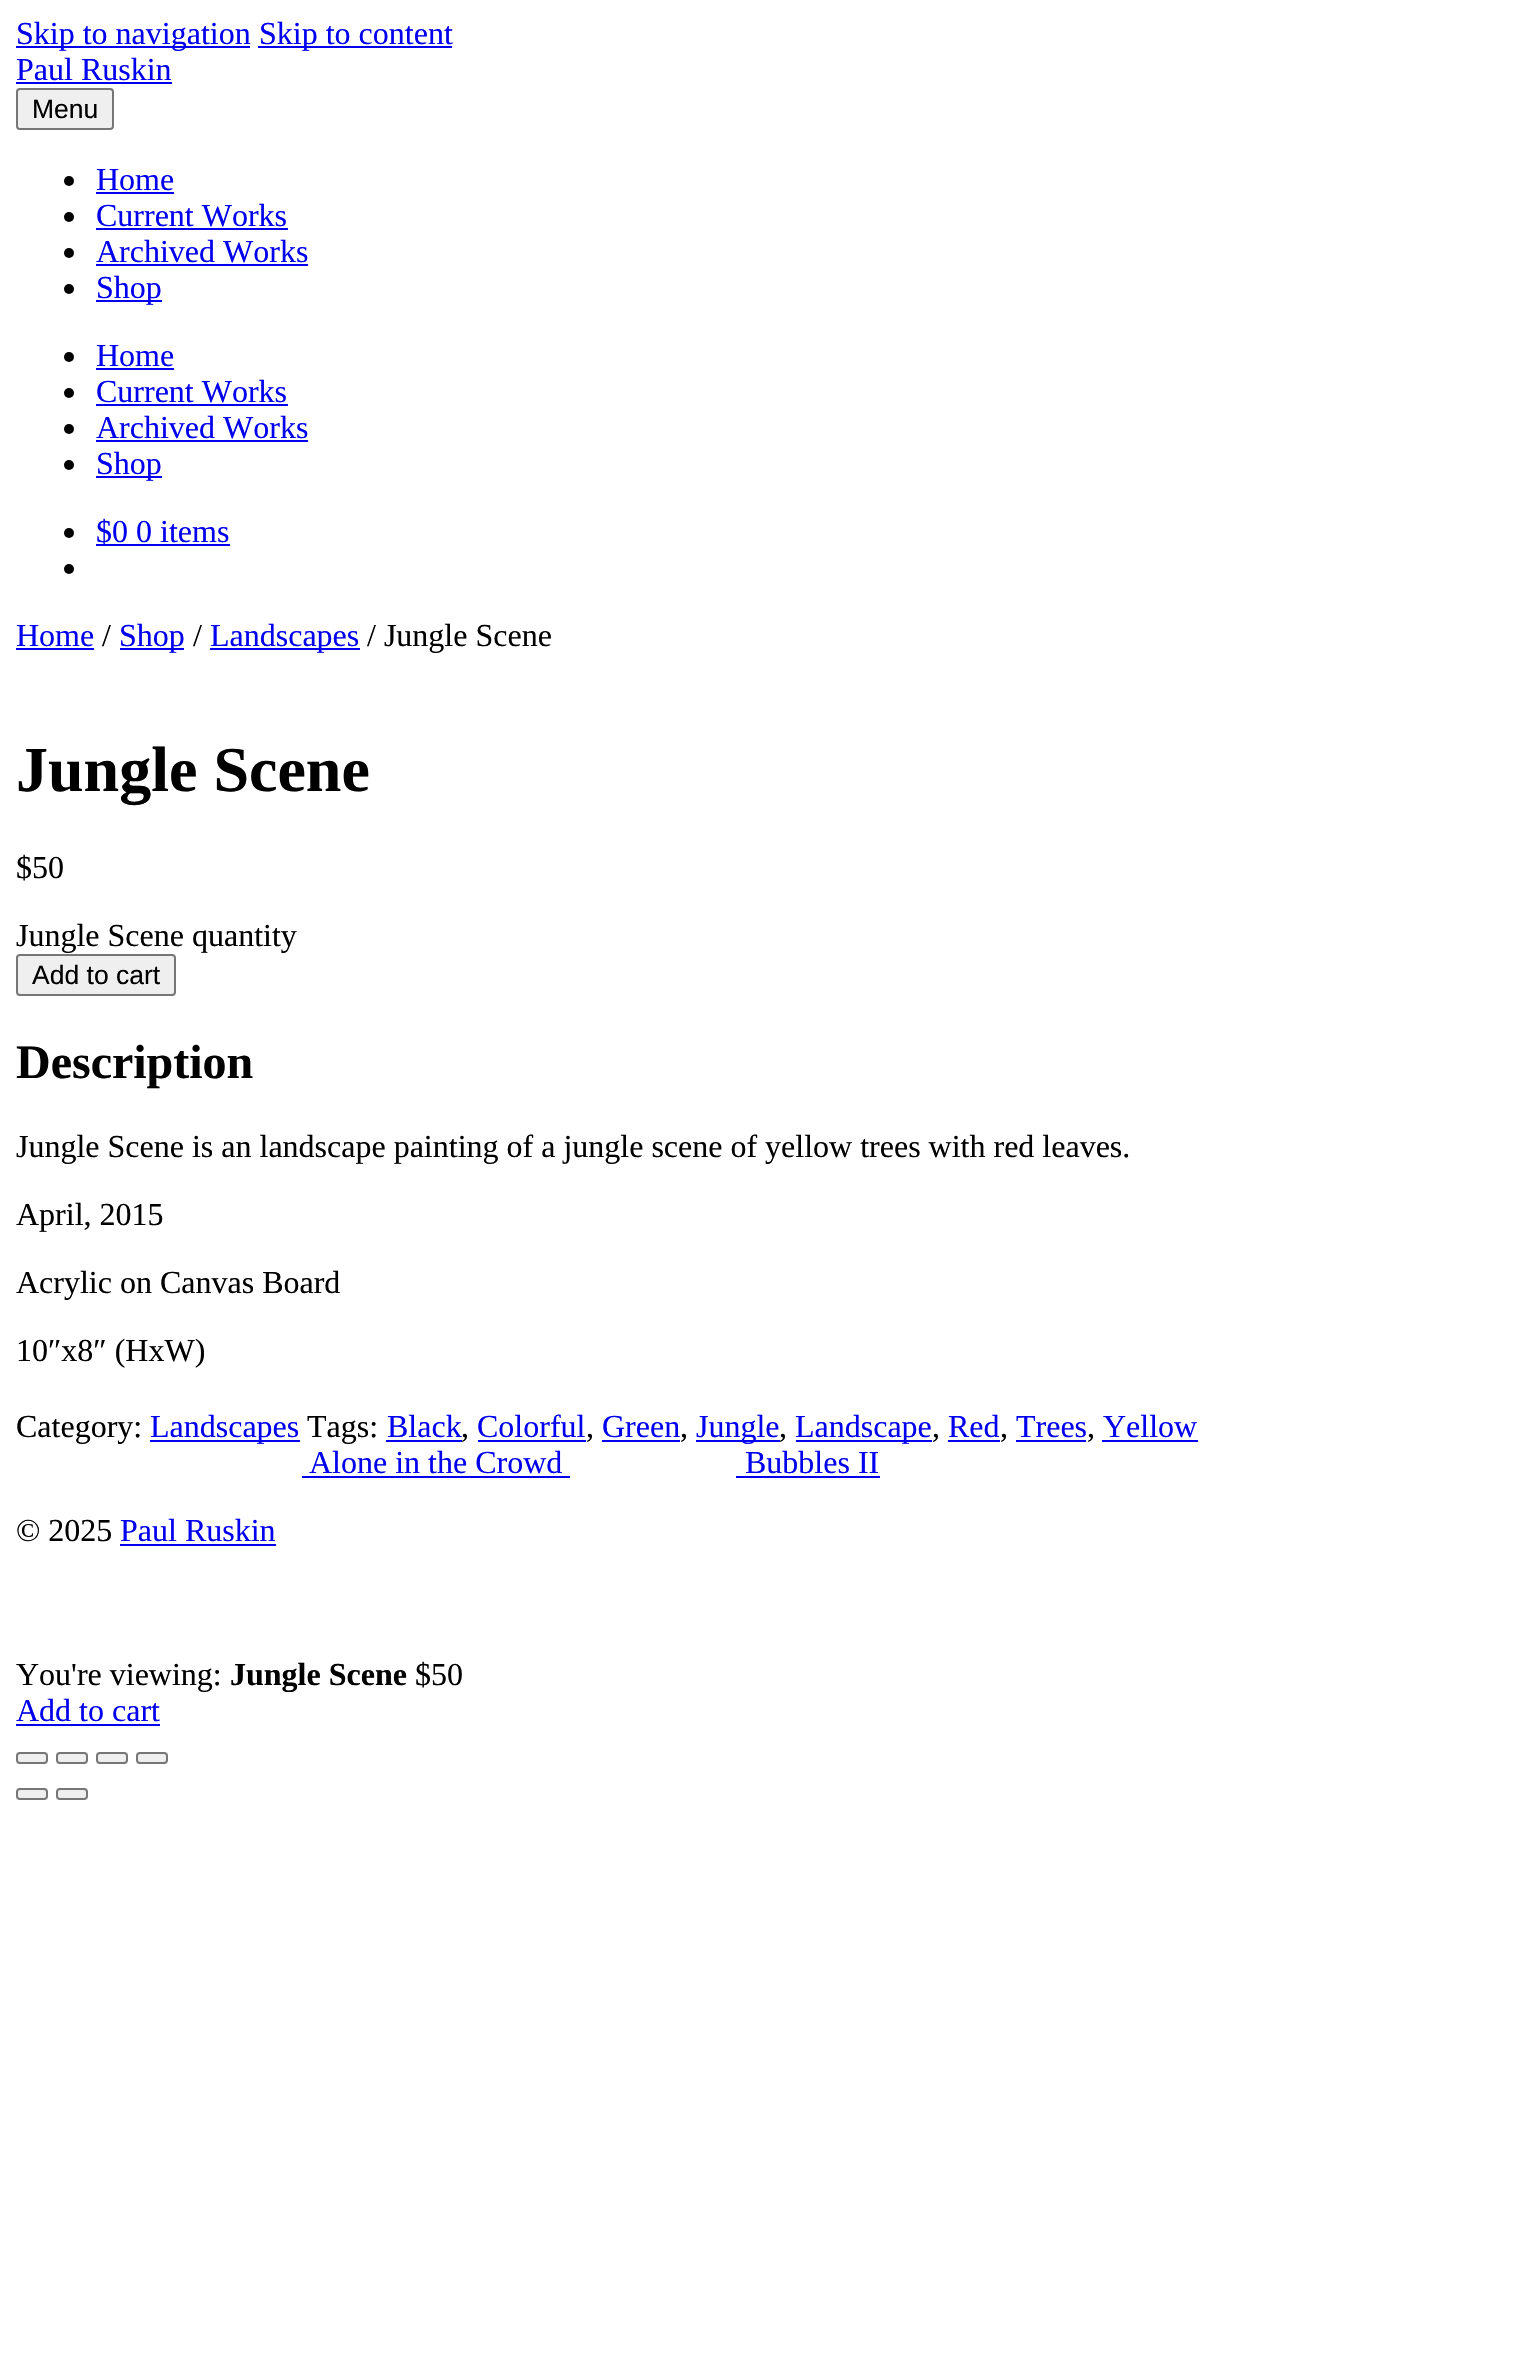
void draw(SkCanvas* canvas) {
	SkPaint fill;
	fill.setAntiAlias(true);
	auto makeFont = [&](const char* family, int weight, float size, bool italic = false) {
		SkFontStyle style(weight, SkFontStyle::kNormal_Width,
			italic ? SkFontStyle::kItalic_Slant : SkFontStyle::kUpright_Slant);
		SkFont result(fontMgr->matchFamilyStyle(family, style), size);
		result.setSubpixel(true);
		return result;
	};
	auto text = [&](const char* s, float x, float y, const SkFont& font) {
		canvas->drawString(s, x, y, font, fill);
	};
	auto box = [&](float l, float t, float r, float b) {
		canvas->drawRect(SkRect::MakeLTRB(l, t, r, b), fill);
	};
	canvas->clear(0xFFFFFFFF);
	fill.setColor(0xFF0000EE);
	box(16, 46, 250, 48);
	box(258, 46, 452, 48);
	box(16, 82, 172, 84);
	fill.setColor(0xFFEFEFEF);
	canvas->drawRoundRect(SkRect::MakeLTRB(17, 89, 113, 129), 3, 3, fill);
	fill.setStyle(SkPaint::kStroke_Style);
	fill.setStrokeWidth(2);
	fill.setColor(0xFF767676);
	canvas->drawRoundRect(SkRect::MakeLTRB(17, 89, 113, 129), 3, 3, fill);
	fill.setStyle(SkPaint::kFill_Style);
	fill.setColor(0xFF000000);
	canvas->drawCircle(69, 181, 5, fill);
	fill.setColor(0xFF0000EE);
	box(96, 192, 174, 194);
	fill.setColor(0xFF000000);
	canvas->drawCircle(69, 217, 5, fill);
	fill.setColor(0xFF0000EE);
	box(96, 228, 288, 230);
	fill.setColor(0xFF000000);
	canvas->drawCircle(69, 253, 5, fill);
	fill.setColor(0xFF0000EE);
	box(96, 264, 308, 266);
	fill.setColor(0xFF000000);
	canvas->drawCircle(69, 289, 5, fill);
	fill.setColor(0xFF0000EE);
	box(96, 300, 162, 302);
	fill.setColor(0xFF000000);
	canvas->drawCircle(69, 357, 5, fill);
	fill.setColor(0xFF0000EE);
	box(96, 368, 174, 370);
	fill.setColor(0xFF000000);
	canvas->drawCircle(69, 393, 5, fill);
	fill.setColor(0xFF0000EE);
	box(96, 404, 288, 406);
	fill.setColor(0xFF000000);
	canvas->drawCircle(69, 429, 5, fill);
	fill.setColor(0xFF0000EE);
	box(96, 440, 308, 442);
	fill.setColor(0xFF000000);
	canvas->drawCircle(69, 465, 5, fill);
	fill.setColor(0xFF0000EE);
	box(96, 476, 162, 478);
	fill.setColor(0xFF000000);
	canvas->drawCircle(69, 533, 5, fill);
	fill.setColor(0xFF0000EE);
	box(96, 544, 230, 546);
	fill.setColor(0xFF000000);
	canvas->drawCircle(69, 569, 5, fill);
	fill.setColor(0xFF0000EE);
	box(16, 648, 94, 650);
	box(120, 648, 184, 650);
	box(210, 648, 360, 650);
	fill.setColor(0xFFEFEFEF);
	canvas->drawRoundRect(SkRect::MakeLTRB(17, 955, 175, 995), 3, 3, fill);
	fill.setStyle(SkPaint::kStroke_Style);
	fill.setColor(0xFF767676);
	canvas->drawRoundRect(SkRect::MakeLTRB(17, 955, 175, 995), 3, 3, fill);
	fill.setStyle(SkPaint::kFill_Style);
	fill.setColor(0xFF0000EE);
	box(150, 1440, 300, 1442);
	box(386, 1440, 462, 1442);
	box(478, 1440, 586, 1442);
	box(602, 1440, 680, 1442);
	box(696, 1440, 780, 1442);
	box(796, 1440, 932, 1442);
	box(948, 1440, 1000, 1442);
	box(1016, 1440, 1086, 1442);
	box(1102, 1440, 1198, 1442);
	box(302, 1476, 570, 1478);
	box(736, 1476, 880, 1478);
	box(120, 1544, 276, 1546);
	box(16, 1724, 160, 1726);
	fill.setColor(0xFFEFEFEF);
	canvas->drawRoundRect(SkRect::MakeLTRB(17, 1753, 47, 1763), 3, 3, fill);
	fill.setStyle(SkPaint::kStroke_Style);
	fill.setColor(0xFF767676);
	canvas->drawRoundRect(SkRect::MakeLTRB(17, 1753, 47, 1763), 3, 3, fill);
	fill.setStyle(SkPaint::kFill_Style);
	fill.setColor(0xFFEFEFEF);
	canvas->drawRoundRect(SkRect::MakeLTRB(57, 1753, 87, 1763), 3, 3, fill);
	fill.setStyle(SkPaint::kStroke_Style);
	fill.setColor(0xFF767676);
	canvas->drawRoundRect(SkRect::MakeLTRB(57, 1753, 87, 1763), 3, 3, fill);
	fill.setStyle(SkPaint::kFill_Style);
	fill.setColor(0xFFEFEFEF);
	canvas->drawRoundRect(SkRect::MakeLTRB(97, 1753, 127, 1763), 3, 3, fill);
	fill.setStyle(SkPaint::kStroke_Style);
	fill.setColor(0xFF767676);
	canvas->drawRoundRect(SkRect::MakeLTRB(97, 1753, 127, 1763), 3, 3, fill);
	fill.setStyle(SkPaint::kFill_Style);
	fill.setColor(0xFFEFEFEF);
	canvas->drawRoundRect(SkRect::MakeLTRB(137, 1753, 167, 1763), 3, 3, fill);
	fill.setStyle(SkPaint::kStroke_Style);
	fill.setColor(0xFF767676);
	canvas->drawRoundRect(SkRect::MakeLTRB(137, 1753, 167, 1763), 3, 3, fill);
	fill.setStyle(SkPaint::kFill_Style);
	fill.setColor(0xFFEFEFEF);
	canvas->drawRoundRect(SkRect::MakeLTRB(17, 1789, 47, 1799), 3, 3, fill);
	fill.setStyle(SkPaint::kStroke_Style);
	fill.setColor(0xFF767676);
	canvas->drawRoundRect(SkRect::MakeLTRB(17, 1789, 47, 1799), 3, 3, fill);
	fill.setStyle(SkPaint::kFill_Style);
	fill.setColor(0xFFEFEFEF);
	canvas->drawRoundRect(SkRect::MakeLTRB(57, 1789, 87, 1799), 3, 3, fill);
	fill.setStyle(SkPaint::kStroke_Style);
	fill.setColor(0xFF767676);
	canvas->drawRoundRect(SkRect::MakeLTRB(57, 1789, 87, 1799), 3, 3, fill);
	auto font1 = makeFont("Liberation Serif", 400, 32);
	fill.setStyle(SkPaint::kFill_Style);
	fill.setColor(0xFF0000EE);
	text("Skip to navigation", 16, 44, font1);
	text("Skip to content", 259, 44, font1);
	text("Paul Ruskin", 16, 80, font1);
	auto font2 = makeFont("Liberation Sans", 400, 26.5f);
	fill.setColor(0xFF000000);
	text("Menu", 32, 118, font2);
	fill.setColor(0xFF0000EE);
	text("Home", 96, 190, font1);
	text("Current Works", 96, 226, font1);
	text("Archived Works", 96, 262, font1);
	text("Shop", 96, 298, font1);
	text("Home", 96, 366, font1);
	text("Current Works", 96, 402, font1);
	text("Archived Works", 96, 438, font1);
	text("Shop", 96, 474, font1);
	text("$0 0 items", 96, 542, font1);
	text("Home", 16, 646, font1);
	fill.setColor(0xFF000000);
	text("/", 102, 646, font1);
	fill.setColor(0xFF0000EE);
	text("Shop", 119, 646, font1);
	fill.setColor(0xFF000000);
	text("/", 193, 646, font1);
	fill.setColor(0xFF0000EE);
	text("Landscapes", 210, 646, font1);
	fill.setColor(0xFF000000);
	text("/ Jungle Scene", 367, 646, font1);
	auto font3 = makeFont("Liberation Serif", 700, 64);
	text("Jungle Scene", 16, 791, font3);
	text("$50", 16, 878, font1);
	text("Jungle Scene quantity", 16, 946, font1);
	text("Add to cart", 32, 984, font2);
	auto font4 = makeFont("Liberation Serif", 700, 48);
	text("Description", 16, 1078, font4);
	text("Jungle Scene is an landscape painting of a jungle scene of yellow trees with red leaves.", 16, 1157, font1);
	text("April, 2015", 16, 1225, font1);
	text("Acrylic on Canvas Board", 16, 1293, font1);
	text("10″x8″ (HxW)", 16, 1361, font1);
	text("Category:", 16, 1437, font1);
	fill.setColor(0xFF0000EE);
	text("Landscapes", 150, 1437, font1);
	fill.setColor(0xFF000000);
	text("Tags:", 307, 1437, font1);
	fill.setColor(0xFF0000EE);
	text("Black", 387, 1437, font1);
	fill.setColor(0xFF000000);
	text(",", 461, 1437, font1);
	fill.setColor(0xFF0000EE);
	text("Colorful", 477, 1437, font1);
	fill.setColor(0xFF000000);
	text(",", 586, 1437, font1);
	fill.setColor(0xFF0000EE);
	text("Green", 602, 1437, font1);
	fill.setColor(0xFF000000);
	text(",", 680, 1437, font1);
	fill.setColor(0xFF0000EE);
	text("Jungle", 696, 1437, font1);
	fill.setColor(0xFF000000);
	text(",", 779, 1437, font1);
	fill.setColor(0xFF0000EE);
	text("Landscape", 795, 1437, font1);
	fill.setColor(0xFF000000);
	text(",", 932, 1437, font1);
	fill.setColor(0xFF0000EE);
	text("Red", 948, 1437, font1);
	fill.setColor(0xFF000000);
	text(",", 1000, 1437, font1);
	fill.setColor(0xFF0000EE);
	text("Trees", 1016, 1437, font1);
	fill.setColor(0xFF000000);
	text(",", 1087, 1437, font1);
	fill.setColor(0xFF0000EE);
	text("Yellow", 1103, 1437, font1);
	text("Alone in the Crowd", 309, 1473, font1);
	text("Bubbles II", 745, 1473, font1);
	fill.setColor(0xFF000000);
	text("© 2025", 16, 1541, font1);
	fill.setColor(0xFF0000EE);
	text("Paul Ruskin", 120, 1541, font1);
	fill.setColor(0xFF000000);
	text("You're viewing:", 16, 1685, font1);
	auto font5 = makeFont("Liberation Serif", 700, 32);
	text("Jungle Scene", 230, 1685, font5);
	text("$50", 415, 1685, font1);
	fill.setColor(0xFF0000EE);
	text("Add to cart", 16, 1721, font1);
}
